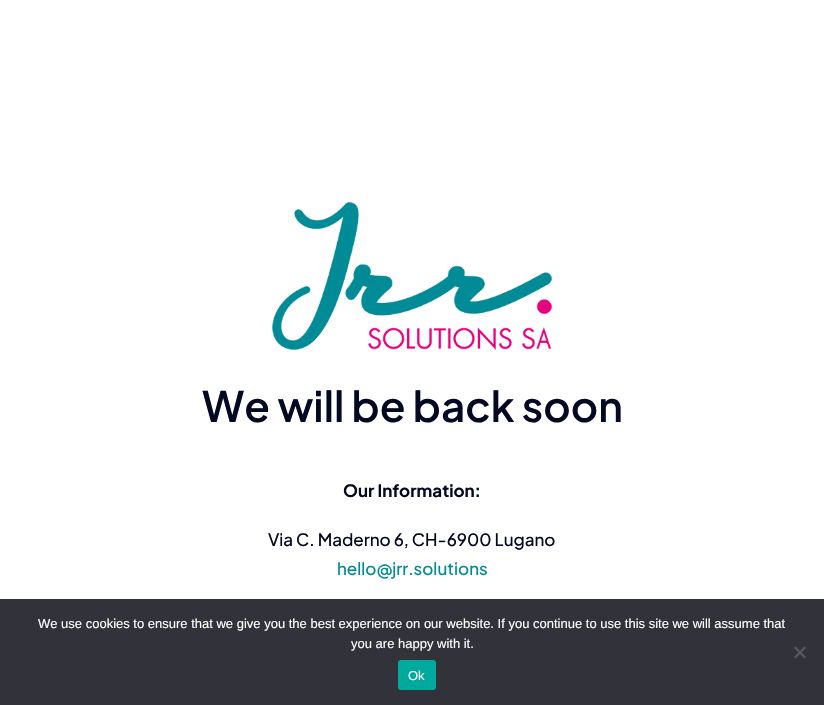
void draw(SkCanvas* canvas) {
	SkPaint fill;
	fill.setAntiAlias(true);
	auto makeFont = [&](const char* family, int weight, float size, bool italic = false) {
		SkFontStyle style(weight, SkFontStyle::kNormal_Width,
			italic ? SkFontStyle::kItalic_Slant : SkFontStyle::kUpright_Slant);
		SkFont result(fontMgr->matchFamilyStyle(family, style), size);
		result.setSubpixel(true);
		return result;
	};
	auto text = [&](const char* s, float x, float y, const SkFont& font) {
		canvas->drawString(s, x, y, font, fill);
	};
	auto box = [&](float l, float t, float r, float b) {
		canvas->drawRect(SkRect::MakeLTRB(l, t, r, b), fill);
	};
	auto roundBox = [&](float l, float t, float r, float b, float radius) {
		canvas->drawRoundRect(SkRect::MakeLTRB(l, t, r, b), radius, radius, fill);
	};
	auto picture = [&](const char* path, float l, float t, float r, float b) {
		auto image = SkImages::DeferredFromEncodedData(SkData::MakeFromFileName(path));
		canvas->drawImageRect(image, SkRect::MakeLTRB(l, t, r, b), SkSamplingOptions());
	};
	canvas->clear(0xFFFFFFFF);
	picture("image0.png", 272, 202, 552, 350);
	fill.setColor(0xFF32323A);
	box(0, 599, 824, 705);
	fill.setColor(0xFF59595D);
	canvas->drawPath(SkPathBuilder().moveTo(804.5f, 646.5f).lineTo(806, 648).lineTo(795.5f, 658.5f).lineTo(794, 657).close().detach(), fill);
	canvas->drawPath(SkPathBuilder().moveTo(794, 648).lineTo(795.5f, 646.5f).lineTo(806, 657).lineTo(804.5f, 658.5f).close().detach(), fill);
	fill.setColor(0xFF00A99D);
	roundBox(398, 660, 436, 690, 3);
	auto font1 = makeFont("Plus Jakarta Sans", 600, 42);
	fill.setColor(0xFF040922);
	text("We will be back soon", 202, 422, font1);
	auto font2 = makeFont("Plus Jakarta Sans", 700, 17);
	text("Our Information:", 343, 497, font2);
	auto font3 = makeFont("Plus Jakarta Sans", 500, 17);
	text("Via C. Maderno 6, CH-6900 Lugano", 268, 546, font3);
	fill.setColor(0xFF008996);
	text("hello@jrr.solutions", 337, 575, font3);
	auto font4 = makeFont("Liberation Sans", 400, 13);
	fill.setColor(0xFFFFFFFF);
	text("We use cookies to ensure that we give you the best experience on our website. If you continue to use this site we will assume that", 38, 628, font4);
	text("you are happy with it.", 351, 648, font4);
	text("Ok", 408, 680, font4);
}
